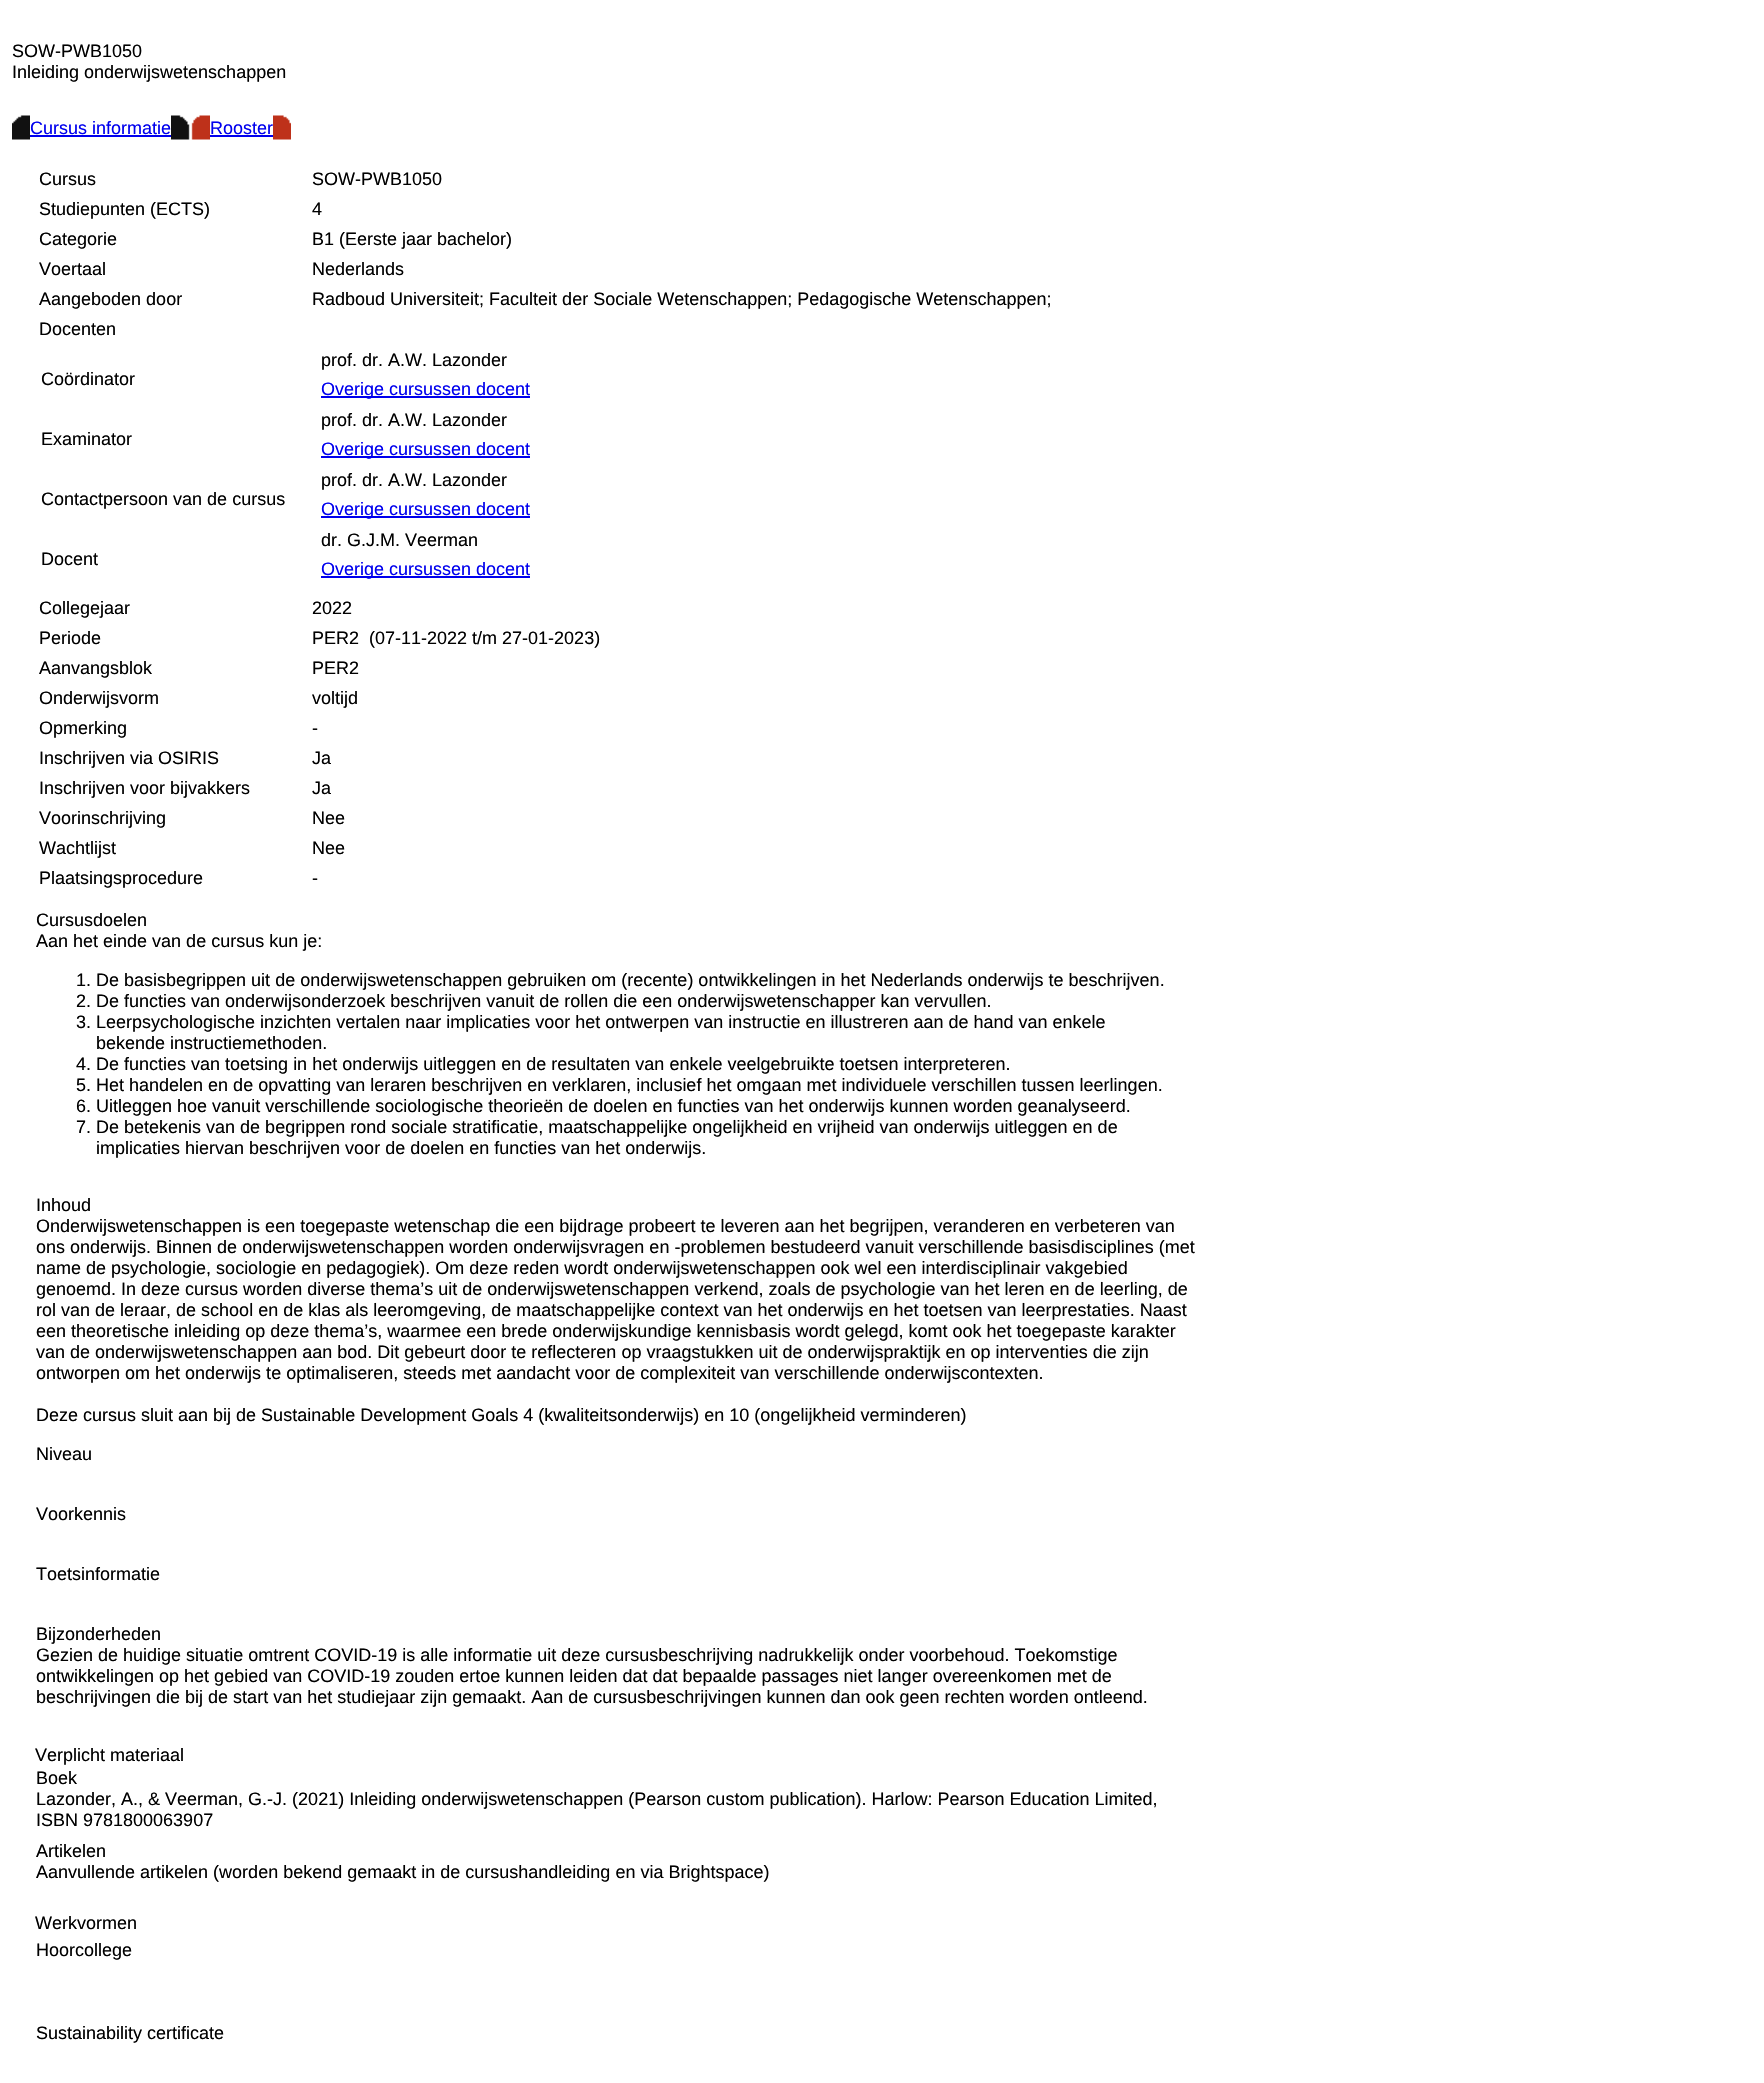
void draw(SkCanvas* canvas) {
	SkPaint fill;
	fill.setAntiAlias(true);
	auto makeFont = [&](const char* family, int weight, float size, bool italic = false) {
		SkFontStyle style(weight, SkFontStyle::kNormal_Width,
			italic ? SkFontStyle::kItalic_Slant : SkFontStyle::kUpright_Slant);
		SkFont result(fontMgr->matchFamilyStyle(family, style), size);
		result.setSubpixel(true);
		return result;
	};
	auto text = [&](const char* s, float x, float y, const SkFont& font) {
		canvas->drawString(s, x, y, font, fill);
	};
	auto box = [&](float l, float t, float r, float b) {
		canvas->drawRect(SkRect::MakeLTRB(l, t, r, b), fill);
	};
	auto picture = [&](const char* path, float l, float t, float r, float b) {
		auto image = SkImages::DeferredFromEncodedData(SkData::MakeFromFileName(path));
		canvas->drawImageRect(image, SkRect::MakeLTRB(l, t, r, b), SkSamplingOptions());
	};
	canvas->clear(0xFFFFFFFF);
	picture("image0.png", 12, 115, 30, 140);
	fill.setColor(0xFF0000EE);
	box(30, 135, 171, 137);
	picture("image1.png", 171, 115, 210, 140);
	box(210, 135, 273, 137);
	picture("image2.png", 273, 115, 291, 140);
	box(321, 396, 530, 398);
	box(321, 456, 530, 458);
	box(321, 516, 530, 518);
	box(321, 576, 530, 578);
	auto font1 = makeFont("Liberation Sans", 400, 18);
	fill.setColor(0xFF000000);
	text("SOW-PWB1050", 12, 57, font1);
	text("Inleiding onderwijswetenschappen", 12, 78, font1);
	fill.setColor(0xFF0000EE);
	text("Cursus informatie", 30, 134, font1);
	text("Rooster", 210, 134, font1);
	fill.setColor(0xFF000000);
	text("Cursus", 39, 185, font1);
	text("SOW-PWB1050", 312, 185, font1);
	text("Studiepunten (ECTS)", 39, 215, font1);
	text("4", 312, 215, font1);
	text("Categorie", 39, 245, font1);
	text("B1 (Eerste jaar bachelor)", 312, 245, font1);
	text("Voertaal", 39, 275, font1);
	text("Nederlands", 312, 275, font1);
	text("Aangeboden door", 39, 305, font1);
	text("Radboud Universiteit; Faculteit der Sociale Wetenschappen; Pedagogische Wetenschappen;", 312, 305, font1);
	text("Docenten", 39, 335, font1);
	text("Coördinator", 41, 385, font1);
	text("prof. dr. A.W. Lazonder", 321, 366, font1);
	fill.setColor(0xFF0000EE);
	text("Overige cursussen docent", 321, 395, font1);
	fill.setColor(0xFF000000);
	text("Examinator", 41, 445, font1);
	text("prof. dr. A.W. Lazonder", 321, 426, font1);
	fill.setColor(0xFF0000EE);
	text("Overige cursussen docent", 321, 455, font1);
	fill.setColor(0xFF000000);
	text("Contactpersoon van de cursus", 41, 505, font1);
	text("prof. dr. A.W. Lazonder", 321, 486, font1);
	fill.setColor(0xFF0000EE);
	text("Overige cursussen docent", 321, 515, font1);
	fill.setColor(0xFF000000);
	text("Docent", 41, 565, font1);
	text("dr. G.J.M. Veerman", 321, 546, font1);
	fill.setColor(0xFF0000EE);
	text("Overige cursussen docent", 321, 575, font1);
	fill.setColor(0xFF000000);
	text("Collegejaar", 39, 614, font1);
	text("2022", 312, 614, font1);
	text("Periode", 39, 644, font1);
	text("PER2", 312, 644, font1);
	text("(07-11-2022 t/m 27-01-2023)", 369, 644, font1);
	text("Aanvangsblok", 39, 674, font1);
	text("PER2", 312, 674, font1);
	text("Onderwijsvorm", 39, 704, font1);
	text("voltijd", 312, 704, font1);
	text("Opmerking", 39, 734, font1);
	text("-", 312, 734, font1);
	text("Inschrijven via OSIRIS", 39, 764, font1);
	text("Ja", 312, 764, font1);
	text("Inschrijven voor bijvakkers", 39, 794, font1);
	text("Ja", 312, 794, font1);
	text("Voorinschrijving", 39, 824, font1);
	text("Nee", 312, 824, font1);
	text("Wachtlijst", 39, 854, font1);
	text("Nee", 312, 854, font1);
	text("Plaatsingsprocedure", 39, 884, font1);
	text("-", 312, 884, font1);
	text("Cursusdoelen", 36, 926, font1);
	text("Aan het einde van de cursus kun je:", 36, 947, font1);
	text("1. De basisbegrippen uit de onderwijswetenschappen gebruiken om (recente) ontwikkelingen in het Nederlands onderwijs te beschrijven.", 76, 986, font1);
	text("2. De functies van onderwijsonderzoek beschrijven vanuit de rollen die een onderwijswetenschapper kan vervullen.", 76, 1007, font1);
	text("3. Leerpsychologische inzichten vertalen naar implicaties voor het ontwerpen van instructie en illustreren aan de hand van enkele", 76, 1028, font1);
	text("bekende instructiemethoden.", 96, 1049, font1);
	text("4. De functies van toetsing in het onderwijs uitleggen en de resultaten van enkele veelgebruikte toetsen interpreteren.", 76, 1070, font1);
	text("5. Het handelen en de opvatting van leraren beschrijven en verklaren, inclusief het omgaan met individuele verschillen tussen leerlingen.", 76, 1091, font1);
	text("6. Uitleggen hoe vanuit verschillende sociologische theorieën de doelen en functies van het onderwijs kunnen worden geanalyseerd.", 76, 1112, font1);
	text("7. De betekenis van de begrippen rond sociale stratificatie, maatschappelijke ongelijkheid en vrijheid van onderwijs uitleggen en de", 76, 1133, font1);
	text("implicaties hiervan beschrijven voor de doelen en functies van het onderwijs.", 96, 1154, font1);
	text("Inhoud", 36, 1211, font1);
	text("Onderwijswetenschappen is een toegepaste wetenschap die een bijdrage probeert te leveren aan het begrijpen, veranderen en verbeteren van", 36, 1232, font1);
	text("ons onderwijs. Binnen de onderwijswetenschappen worden onderwijsvragen en -problemen bestudeerd vanuit verschillende basisdisciplines (met", 36, 1253, font1);
	text("name de psychologie, sociologie en pedagogiek). Om deze reden wordt onderwijswetenschappen ook wel een interdisciplinair vakgebied", 36, 1274, font1);
	text("genoemd. In deze cursus worden diverse thema’s uit de onderwijswetenschappen verkend, zoals de psychologie van het leren en de leerling, de", 36, 1295, font1);
	text("rol van de leraar, de school en de klas als leeromgeving, de maatschappelijke context van het onderwijs en het toetsen van leerprestaties. Naast", 36, 1316, font1);
	text("een theoretische inleiding op deze thema’s, waarmee een brede onderwijskundige kennisbasis wordt gelegd, komt ook het toegepaste karakter", 36, 1337, font1);
	text("van de onderwijswetenschappen aan bod. Dit gebeurt door te reflecteren op vraagstukken uit de onderwijspraktijk en op interventies die zijn", 36, 1358, font1);
	text("ontworpen om het onderwijs te optimaliseren, steeds met aandacht voor de complexiteit van verschillende onderwijscontexten.", 36, 1379, font1);
	text("Deze cursus sluit aan bij de Sustainable Development Goals 4 (kwaliteitsonderwijs) en 10 (ongelijkheid verminderen)", 36, 1421, font1);
	text("Niveau", 36, 1460, font1);
	text("Voorkennis", 36, 1520, font1);
	text("Toetsinformatie", 36, 1580, font1);
	text("Bijzonderheden", 36, 1640, font1);
	text("Gezien de huidige situatie omtrent COVID-19 is alle informatie uit deze cursusbeschrijving nadrukkelijk onder voorbehoud. Toekomstige", 36, 1661, font1);
	text("ontwikkelingen op het gebied van COVID-19 zouden ertoe kunnen leiden dat dat bepaalde passages niet langer overeenkomen met de", 36, 1682, font1);
	text("beschrijvingen die bij de start van het studiejaar zijn gemaakt. Aan de cursusbeschrijvingen kunnen dan ook geen rechten worden ontleend.", 36, 1703, font1);
	text("Verplicht materiaal", 35, 1761, font1);
	text("Boek", 36, 1784, font1);
	text("Lazonder, A., & Veerman, G.-J. (2021) Inleiding onderwijswetenschappen (Pearson custom publication). Harlow: Pearson Education Limited,", 36, 1805, font1);
	text("ISBN 9781800063907", 36, 1826, font1);
	text("Artikelen", 36, 1857, font1);
	text("Aanvullende artikelen (worden bekend gemaakt in de cursushandleiding en via Brightspace)", 36, 1878, font1);
	text("Werkvormen", 35, 1929, font1);
	text("Hoorcollege", 36, 1956, font1);
	text("Sustainability certificate", 36, 2039, font1);
}
